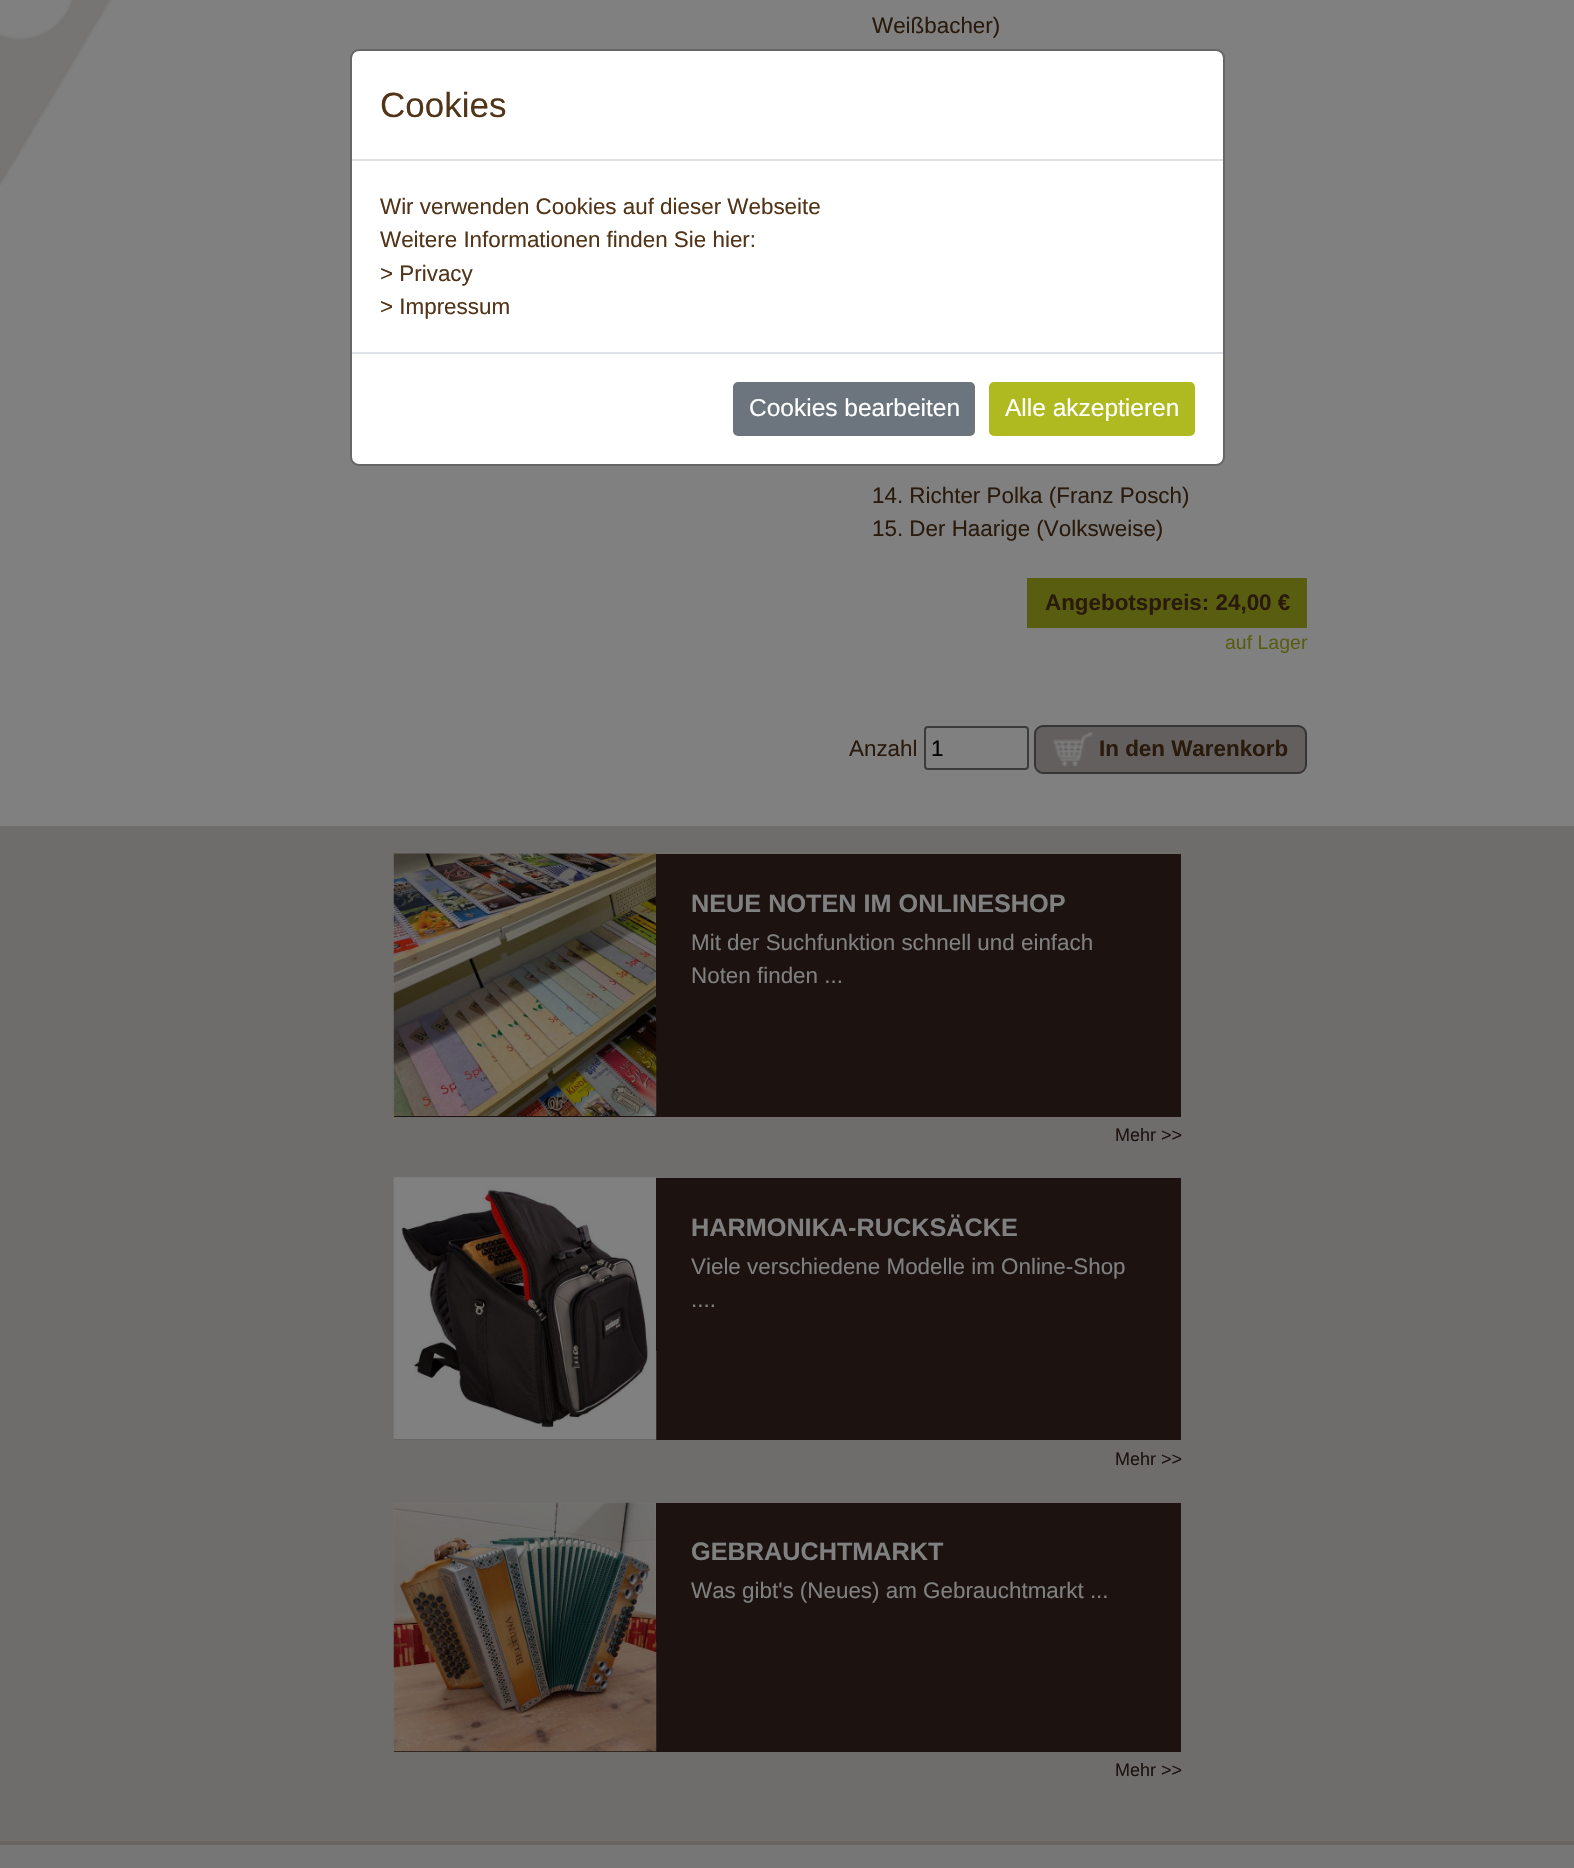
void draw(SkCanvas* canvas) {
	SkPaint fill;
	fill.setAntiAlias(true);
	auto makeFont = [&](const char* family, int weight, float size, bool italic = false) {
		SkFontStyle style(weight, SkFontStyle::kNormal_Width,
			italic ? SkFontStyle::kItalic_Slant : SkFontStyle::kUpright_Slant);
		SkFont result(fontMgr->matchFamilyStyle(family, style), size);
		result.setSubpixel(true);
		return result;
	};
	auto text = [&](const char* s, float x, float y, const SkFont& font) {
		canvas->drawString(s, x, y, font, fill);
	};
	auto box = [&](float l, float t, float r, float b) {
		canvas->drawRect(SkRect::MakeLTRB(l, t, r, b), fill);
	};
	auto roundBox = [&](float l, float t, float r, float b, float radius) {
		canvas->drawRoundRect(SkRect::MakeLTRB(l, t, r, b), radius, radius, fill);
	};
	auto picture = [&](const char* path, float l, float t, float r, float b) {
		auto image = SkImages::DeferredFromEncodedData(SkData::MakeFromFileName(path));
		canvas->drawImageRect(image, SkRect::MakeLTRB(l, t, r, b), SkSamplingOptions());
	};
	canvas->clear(0xFF808080);
	picture("image0.png", 0, 0, 111, 185);
	fill.setColor(0xFF585D10);
	box(1027, 578, 1307, 628);
	fill.setStyle(SkPaint::kStroke_Style);
	fill.setStrokeWidth(2);
	fill.setColor(0xFF3B3B3B);
	canvas->drawRoundRect(SkRect::MakeLTRB(925, 727, 1028, 769), 3, 3, fill);
	fill.setStyle(SkPaint::kFill_Style);
	fill.setColor(0xFF625F5E);
	canvas->drawRoundRect(SkRect::MakeLTRB(1035, 726, 1306, 773), 8, 8, fill);
	fill.setStyle(SkPaint::kStroke_Style);
	fill.setColor(0xFF353535);
	canvas->drawRoundRect(SkRect::MakeLTRB(1035, 726, 1306, 773), 8, 8, fill);
	picture("image1.png", 1053, 732, 1092, 766);
	fill.setStyle(SkPaint::kFill_Style);
	fill.setColor(0xFFFFFFFF);
	roundBox(352, 51, 1223, 464, 7);
	fill.setStyle(SkPaint::kStroke_Style);
	fill.setColor(0x33000000);
	canvas->drawRoundRect(SkRect::MakeLTRB(351, 50, 1224, 465), 8, 8, fill);
	fill.setStyle(SkPaint::kFill_Style);
	fill.setColor(0xFFDEE2E6);
	box(352, 159, 1223, 161);
	box(352, 352, 1223, 354);
	fill.setColor(0xFF6C757D);
	canvas->drawRoundRect(SkRect::MakeLTRB(734, 383, 974, 435), 4, 4, fill);
	fill.setStyle(SkPaint::kStroke_Style);
	canvas->drawRoundRect(SkRect::MakeLTRB(734, 383, 974, 435), 4, 4, fill);
	fill.setStyle(SkPaint::kFill_Style);
	fill.setColor(0xFFAFBA20);
	canvas->drawRoundRect(SkRect::MakeLTRB(990, 383, 1194, 435), 4, 4, fill);
	fill.setStyle(SkPaint::kStroke_Style);
	canvas->drawRoundRect(SkRect::MakeLTRB(990, 383, 1194, 435), 4, 4, fill);
	fill.setStyle(SkPaint::kFill_Style);
	fill.setColor(0xFF6F6D6B);
	box(0, 826, 1574, 1841);
	fill.setColor(0xFF1C1310);
	box(394, 1027, 1181, 1117);
	picture("image2.png", 393, 853, 657, 1116);
	box(656, 854, 1181, 1027);
	box(394, 1351, 1181, 1440);
	picture("image3.png", 393, 1177, 657, 1440);
	box(656, 1178, 1181, 1351);
	box(394, 1642, 1181, 1752);
	picture("image4.png", 393, 1502, 657, 1752);
	box(656, 1503, 1181, 1642);
	fill.setColor(0xFF777676);
	box(0, 1845, 1574, 1868);
	fill.setColor(0xFF676461);
	box(0, 1841, 1574, 1845);
	auto font1 = makeFont("Liberation Sans", 400, 22.4f);
	fill.setColor(0xFF291A0C);
	text("Weißbacher)", 872, 33, font1);
	text("14. Richter Polka (Franz Posch)", 872, 503, font1);
	text("15. Der Haarige (Volksweise)", 872, 536, font1);
	auto font2 = makeFont("Liberation Sans", 700, 22.4f);
	text("Angebotspreis: 24,00 €", 1045, 610, font2);
	auto font3 = makeFont("Liberation Sans", 400, 19.5f);
	fill.setColor(0xFF585D10);
	text("auf Lager", 1225, 649, font3);
	fill.setColor(0xFF291A0C);
	text("Anzahl", 849, 756, font1);
	fill.setColor(0xFF000000);
	text("1", 931, 756, font1);
	fill.setColor(0xFF291A0C);
	text("In den Warenkorb", 1099, 756, font2);
	auto font4 = makeFont("Liberation Sans", 400, 35);
	fill.setColor(0xFF523418);
	text("Cookies", 380, 117, font4);
	text("Wir verwenden Cookies auf dieser Webseite", 380, 214, font1);
	text("Weitere Informationen finden Sie hier:", 380, 247, font1);
	text("> Privacy", 380, 281, font1);
	text("> Impressum", 380, 314, font1);
	auto font5 = makeFont("Liberation Sans", 400, 24.5f);
	fill.setColor(0xFFFFFFFF);
	text("Cookies bearbeiten", 749, 416, font5);
	text("Alle akzeptieren", 1005, 416, font5);
	auto font6 = makeFont("Liberation Sans", 700, 25.25f);
	fill.setColor(0xFF808080);
	text("NEUE NOTEN IM ONLINESHOP", 691, 912, font6);
	text("Mit der Suchfunktion schnell und einfach", 691, 950, font1);
	text("Noten finden ...", 691, 983, font1);
	auto font7 = makeFont("Liberation Sans", 400, 18);
	fill.setColor(0xFF1C1310);
	text("Mehr >>", 1115, 1141, font7);
	fill.setColor(0xFF808080);
	text("HARMONIKA-RUCKSÄCKE", 691, 1236, font6);
	text("Viele verschiedene Modelle im Online-Shop", 691, 1274, font1);
	text("....", 691, 1307, font1);
	fill.setColor(0xFF1C1310);
	text("Mehr >>", 1115, 1465, font7);
	fill.setColor(0xFF808080);
	text("GEBRAUCHTMARKT", 691, 1560, font6);
	text("Was gibt's (Neues) am Gebrauchtmarkt ...", 691, 1598, font1);
	fill.setColor(0xFF1C1310);
	text("Mehr >>", 1115, 1776, font7);
}
